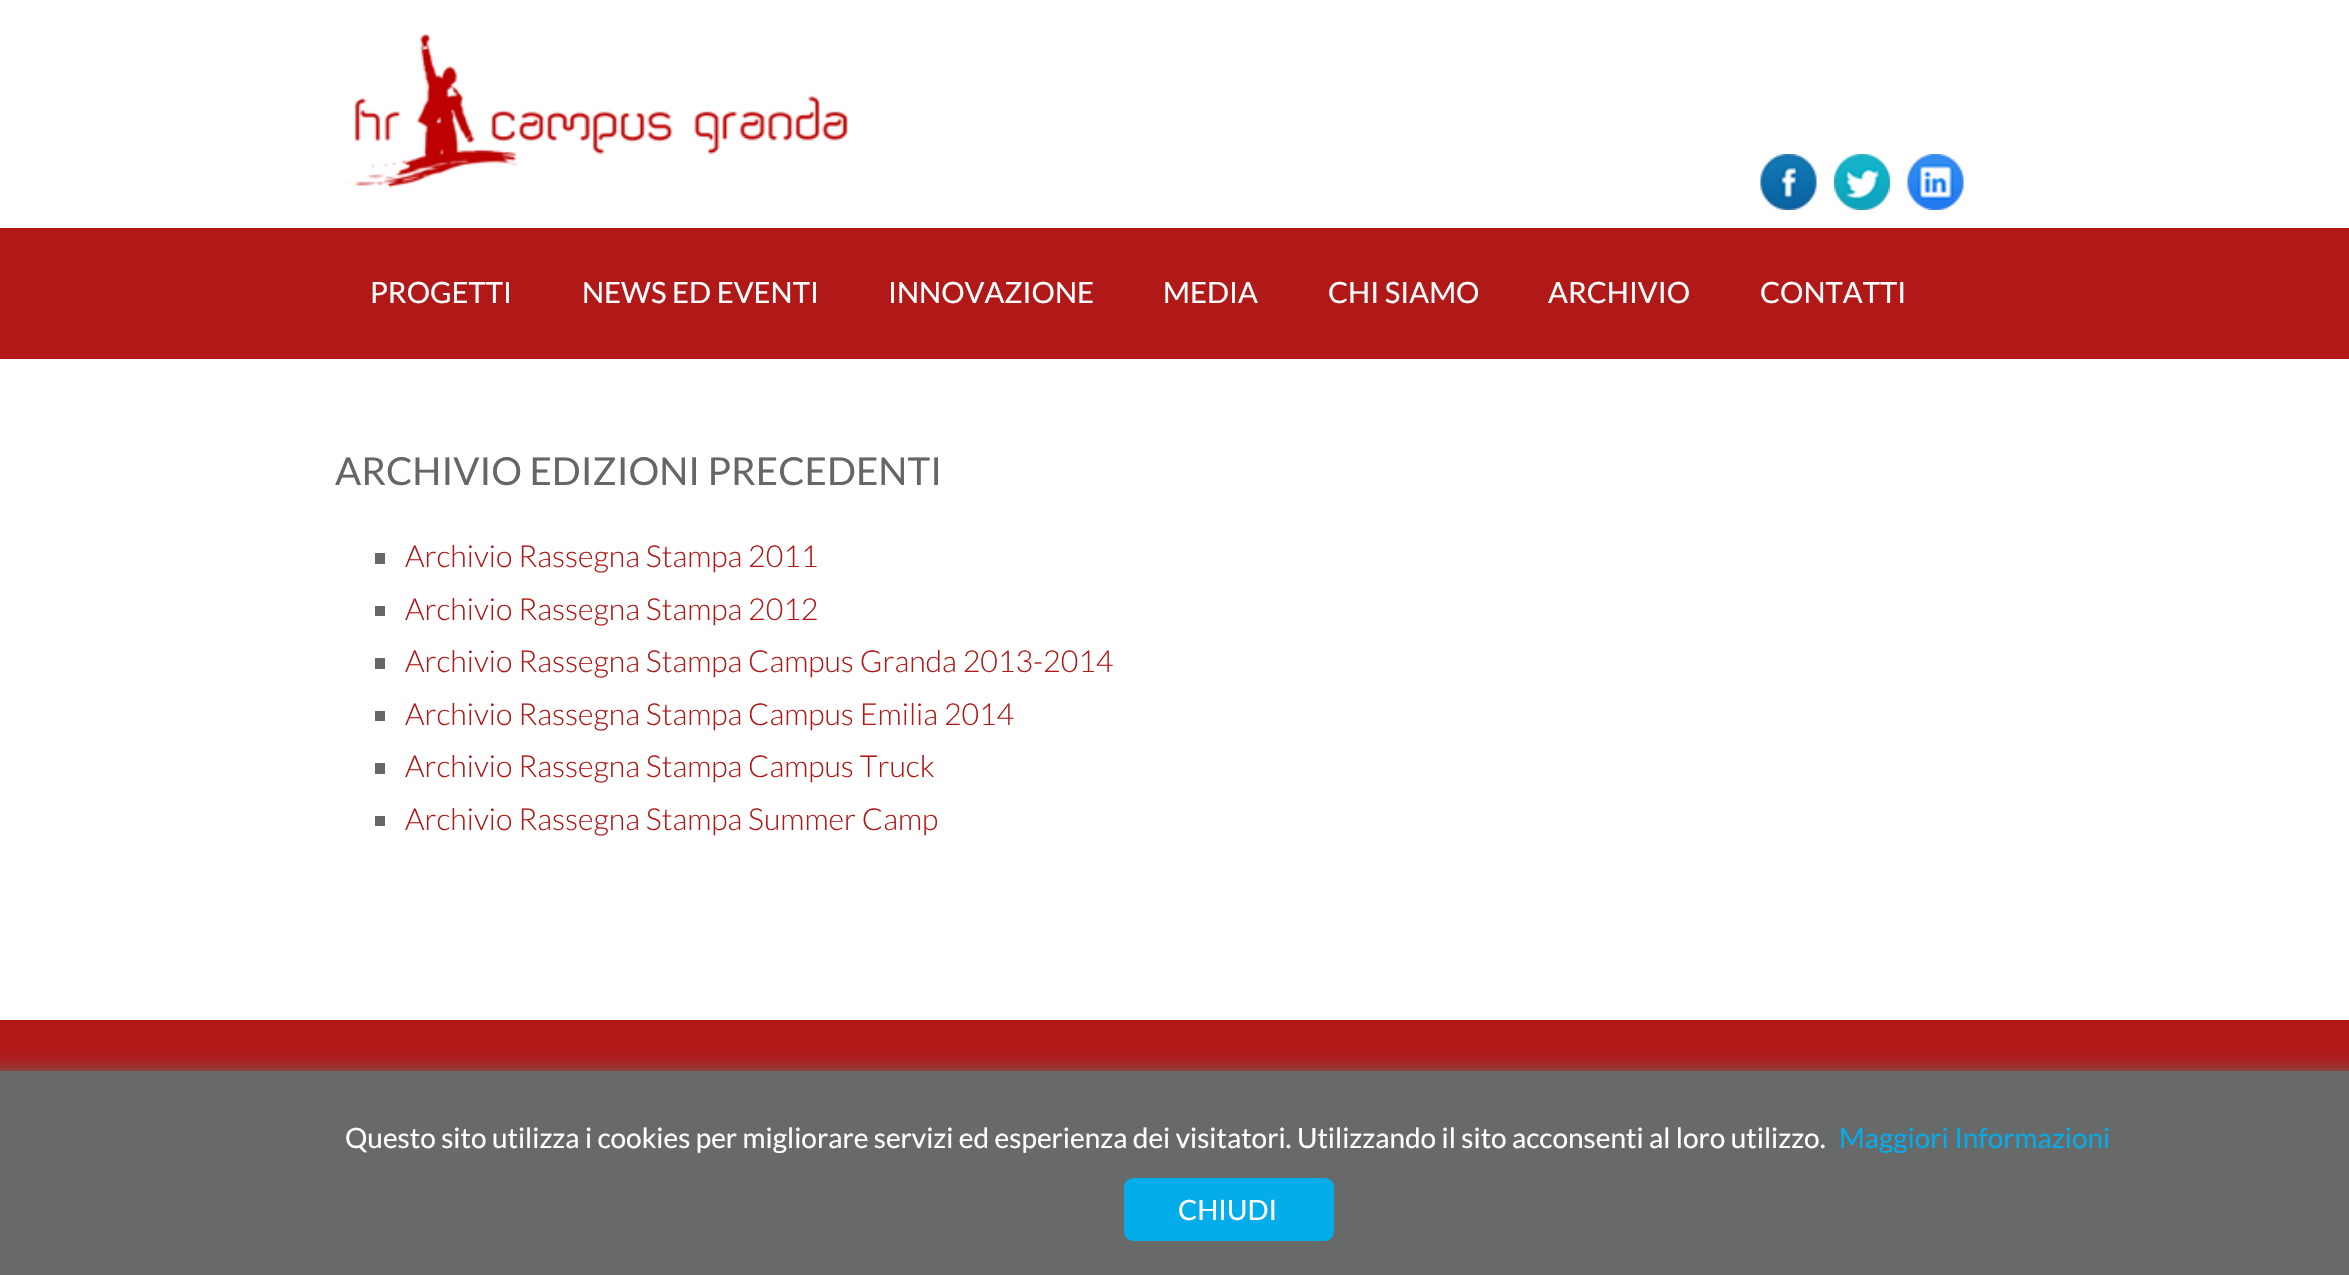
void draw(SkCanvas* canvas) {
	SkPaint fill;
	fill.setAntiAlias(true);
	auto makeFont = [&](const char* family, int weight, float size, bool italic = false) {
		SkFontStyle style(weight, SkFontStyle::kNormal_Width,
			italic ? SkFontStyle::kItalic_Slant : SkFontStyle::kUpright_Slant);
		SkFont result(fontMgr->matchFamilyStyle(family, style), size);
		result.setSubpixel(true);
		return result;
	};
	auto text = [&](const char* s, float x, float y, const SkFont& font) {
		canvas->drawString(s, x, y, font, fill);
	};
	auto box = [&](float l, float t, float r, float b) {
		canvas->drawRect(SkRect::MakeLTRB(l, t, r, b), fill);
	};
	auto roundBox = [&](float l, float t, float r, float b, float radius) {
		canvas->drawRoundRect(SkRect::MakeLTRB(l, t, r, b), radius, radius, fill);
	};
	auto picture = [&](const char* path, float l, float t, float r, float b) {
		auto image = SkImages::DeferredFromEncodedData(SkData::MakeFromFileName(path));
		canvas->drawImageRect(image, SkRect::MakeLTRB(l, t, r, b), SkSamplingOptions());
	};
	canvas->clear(0xFFFFFFFF);
	picture("image0.png", 346, 33, 848, 188);
	picture("image1.png", 1760, 154, 1817, 210);
	picture("image2.png", 1834, 154, 1890, 210);
	picture("image3.png", 1907, 154, 1964, 210);
	fill.setColor(0xFFB11818);
	box(0, 228, 2349, 359);
	fill.setColor(0xFF666666);
	box(375, 553, 385, 564);
	box(375, 606, 385, 616);
	box(375, 658, 385, 669);
	box(375, 711, 385, 721);
	box(375, 763, 385, 774);
	box(375, 816, 385, 826);
	fill.setColor(0xFFB11818);
	box(0, 1020, 2349, 1071);
	fill.setColor(0xFF666666);
	fill.setMaskFilter(SkMaskFilter::MakeBlur(kNormal_SkBlurStyle, 9));
	canvas->drawRect(SkRect::MakeLTRB(-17, 1071, 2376, 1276), fill);
	fill.setMaskFilter(nullptr);
	fill.setColor(0xFF686969);
	box(0, 1071, 2349, 1275);
	fill.setColor(0xFF05ACEA);
	roundBox(1124, 1178, 1334, 1241, 9);
	auto font1 = makeFont("Lato", 400, 29.25f);
	fill.setColor(0xFFFFFFFF);
	text("PROGETTI", 370, 303, font1);
	text("NEWS ED EVENTI", 582, 303, font1);
	text("INNOVAZIONE", 888, 303, font1);
	text("MEDIA", 1163, 303, font1);
	text("CHI SIAMO", 1328, 303, font1);
	text("ARCHIVIO", 1548, 303, font1);
	text("CONTATTI", 1760, 303, font1);
	auto font2 = makeFont("Lato", 400, 38.5f);
	fill.setColor(0xFF666666);
	text("ARCHIVIO EDIZIONI PRECEDENTI", 335, 485, font2);
	auto font3 = makeFont("Lato", 300, 30.3f);
	fill.setColor(0xFFB11818);
	text("Archivio Rassegna Stampa 2011", 405, 567, font3);
	text("Archivio Rassegna Stampa 2012", 405, 620, font3);
	text("Archivio Rassegna Stampa Campus Granda 2013-2014", 405, 672, font3);
	text("Archivio Rassegna Stampa Campus Emilia 2014", 405, 725, font3);
	text("Archivio Rassegna Stampa Campus Truck", 405, 777, font3);
	text("Archivio Rassegna Stampa Summer Camp", 405, 830, font3);
	auto font4 = makeFont("Lato", 400, 28);
	fill.setColor(0xFFFFFFFF);
	text("Questo sito utilizza i cookies per migliorare servizi ed esperienza dei visitatori. Utilizzando il sito acconsenti al loro utilizzo.", 345, 1148, font4);
	fill.setColor(0xFF05ACEA);
	text("Maggiori Informazioni", 1839, 1148, font4);
	fill.setColor(0xFFFFFFFF);
	text("CHIUDI", 1178, 1220, font4);
}
